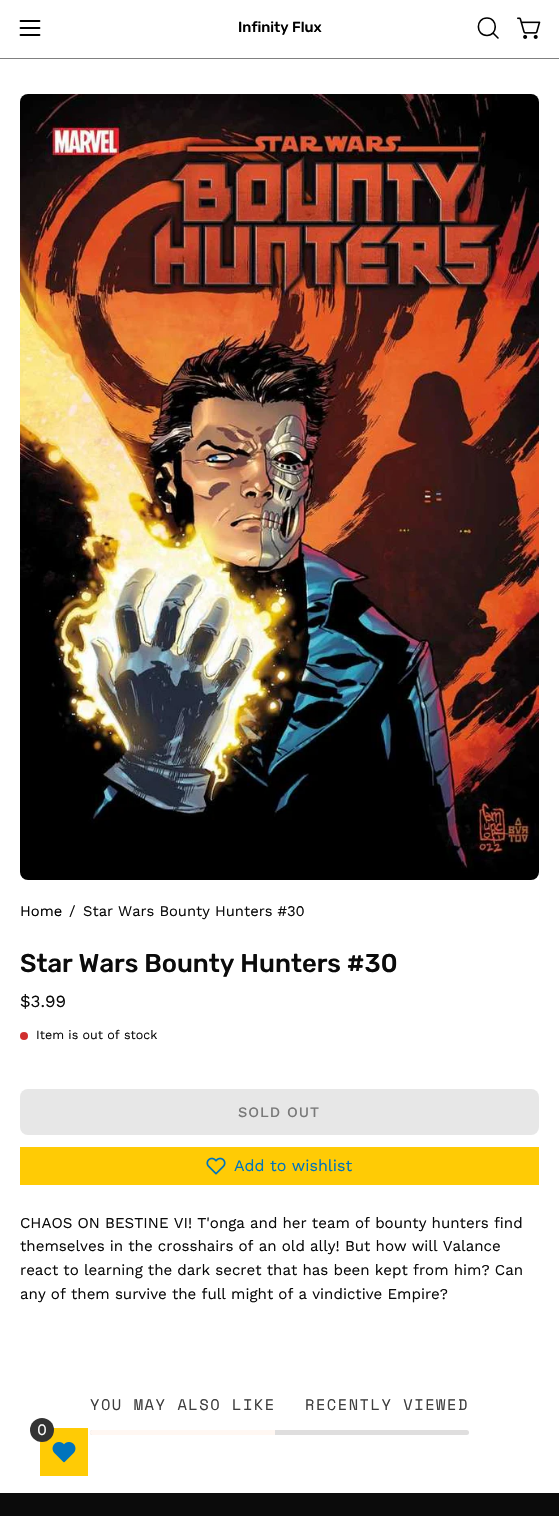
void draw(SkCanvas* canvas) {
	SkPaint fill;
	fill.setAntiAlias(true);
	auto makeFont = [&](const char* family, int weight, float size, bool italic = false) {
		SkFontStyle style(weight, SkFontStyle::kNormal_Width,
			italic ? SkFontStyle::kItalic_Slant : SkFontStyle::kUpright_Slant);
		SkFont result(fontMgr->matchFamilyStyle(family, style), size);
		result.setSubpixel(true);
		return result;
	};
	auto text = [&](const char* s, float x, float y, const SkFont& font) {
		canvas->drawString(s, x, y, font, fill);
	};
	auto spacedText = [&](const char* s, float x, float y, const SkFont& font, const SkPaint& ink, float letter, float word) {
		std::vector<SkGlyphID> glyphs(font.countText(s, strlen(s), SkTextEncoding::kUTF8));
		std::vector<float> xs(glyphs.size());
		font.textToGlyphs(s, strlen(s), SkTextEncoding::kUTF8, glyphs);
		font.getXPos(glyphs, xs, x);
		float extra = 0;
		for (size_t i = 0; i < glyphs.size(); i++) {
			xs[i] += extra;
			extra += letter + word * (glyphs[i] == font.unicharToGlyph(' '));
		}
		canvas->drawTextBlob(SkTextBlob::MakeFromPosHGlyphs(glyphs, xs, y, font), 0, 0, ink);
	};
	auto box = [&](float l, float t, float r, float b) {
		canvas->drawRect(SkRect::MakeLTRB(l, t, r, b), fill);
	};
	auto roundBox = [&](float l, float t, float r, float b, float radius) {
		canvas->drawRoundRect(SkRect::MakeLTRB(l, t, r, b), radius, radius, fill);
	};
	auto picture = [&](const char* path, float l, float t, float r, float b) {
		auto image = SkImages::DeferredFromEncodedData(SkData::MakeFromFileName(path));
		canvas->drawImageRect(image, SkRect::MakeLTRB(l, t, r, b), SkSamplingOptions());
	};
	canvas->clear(0xFFFFFFFF);
	fill.setStyle(SkPaint::kStroke_Style);
	fill.setStrokeWidth(1.8f);
	fill.setStrokeCap(SkPaint::kRound_Cap);
	fill.setStrokeJoin(SkPaint::kRound_Join);
	fill.setColor(0xFF000000);
	canvas->drawPath(SkPathBuilder().moveTo(20.5f, 28).lineTo(39.5f, 28).moveTo(20.5f, 21).lineTo(39.5f, 21).moveTo(20.5f, 35).lineTo(39.5f, 35).detach(), fill);
	fill.setStrokeWidth(1.6f);
	canvas->drawPath(SkPathBuilder().moveTo(487, 35.5f).cubicTo(498, 35.5f, 498, 18, 487, 18).cubicTo(475.5f, 18, 475.5f, 35.5f, 487, 35.5f).close().moveTo(493, 33).lineTo(498, 38).detach(), fill);
	picture("image0.png", 517, 17, 541, 39);
	fill.setStyle(SkPaint::kFill_Style);
	fill.setColor(0xFF808080);
	box(0, 58, 559, 59);
	picture("image1.png", 20, 94, 539, 880);
	fill.setColor(0xFFD02E2E);
	canvas->drawCircle(24, 1036, 4, fill);
	fill.setColor(0xFFE7E7E7);
	roundBox(20, 1089, 539, 1135, 8);
	fill.setColor(0xFFFFCB05);
	box(20, 1147, 539, 1185);
	picture("image2.png", 206, 1157, 226, 1175);
	fill.setColor(0xFFDFDEDE);
	roundBox(90, 1430, 469, 1435, 2.5f);
	fill.setColor(0xFFFFF7F2);
	canvas->drawPath(SkPathBuilder().moveTo(92.5f, 1430).lineTo(275, 1430).lineTo(275, 1435).lineTo(92.5f, 1435).cubicTo(91, 1435, 90, 1434, 90, 1432.5f).cubicTo(90, 1431, 91, 1430, 92.5f, 1430).close().detach(), fill);
	fill.setColor(0xFFFFCB05);
	box(40, 1428, 88, 1476);
	fill.setColor(0xFF333333);
	canvas->drawCircle(42, 1430, 12, fill);
	picture("image3.png", 52, 1442, 76, 1463);
	fill.setColor(0xFF0B0B0B);
	box(0, 1493, 559, 1516);
	auto font1 = makeFont("Rubik", 500, 14.5f);
	fill.setColor(0xFF000000);
	text("Infinity Flux", 238, 32, font1);
	auto font2 = makeFont("Work Sans", 400, 14.75f);
	text("Home", 20, 916, font2);
	fill.setColor(0xFF0B0B0B);
	text("/", 69, 916, font2);
	text("Star Wars Bounty Hunters #30", 83, 916, font2);
	auto font3 = makeFont("Rubik", 500, 25.6f);
	text("Star Wars Bounty Hunters #30", 20, 972, font3);
	auto font4 = makeFont("Work Sans", 400, 17);
	text("$3.99", 20, 1007, font4);
	auto font5 = makeFont("Work Sans", 400, 12.5f);
	text("Item is out of stock", 36, 1039, font5);
	auto font6 = makeFont("Work Sans", 500, 14.5f);
	fill.setColor(0xFF797979);
	spacedText("SOLD OUT", 238, 1117, font6, fill, 1, 0);
	auto font7 = makeFont("Work Sans", 400, 16);
	fill.setColor(0xFF0074BD);
	text("Add to wishlist", 234, 1171, font7);
	auto font8 = makeFont("Work Sans", 400, 15.1f);
	fill.setColor(0xFF0B0B0B);
	text("CHAOS ON BESTINE VI! T'onga and her team of bounty hunters find", 20, 1228, font8);
	text("themselves in the crosshairs of an old ally! But how will Valance", 20, 1251, font8);
	text("react to learning the dark secret that has been kept from him? Can", 20, 1275, font8);
	text("any of them survive the full might of a vindictive Empire?", 20, 1299, font8);
	auto font9 = makeFont("Space Mono", 400, 15.4f);
	fill.setColor(0xFF3E3E3E);
	spacedText("YOU MAY ALSO LIKE", 90, 1410, font9, fill, 1.5f, 0);
	spacedText("RECENTLY VIEWED", 305, 1410, font9, fill, 1.5f, 0);
	fill.setColor(0xFFFFFFFF);
	text("0", 37, 1435, font7);
}
